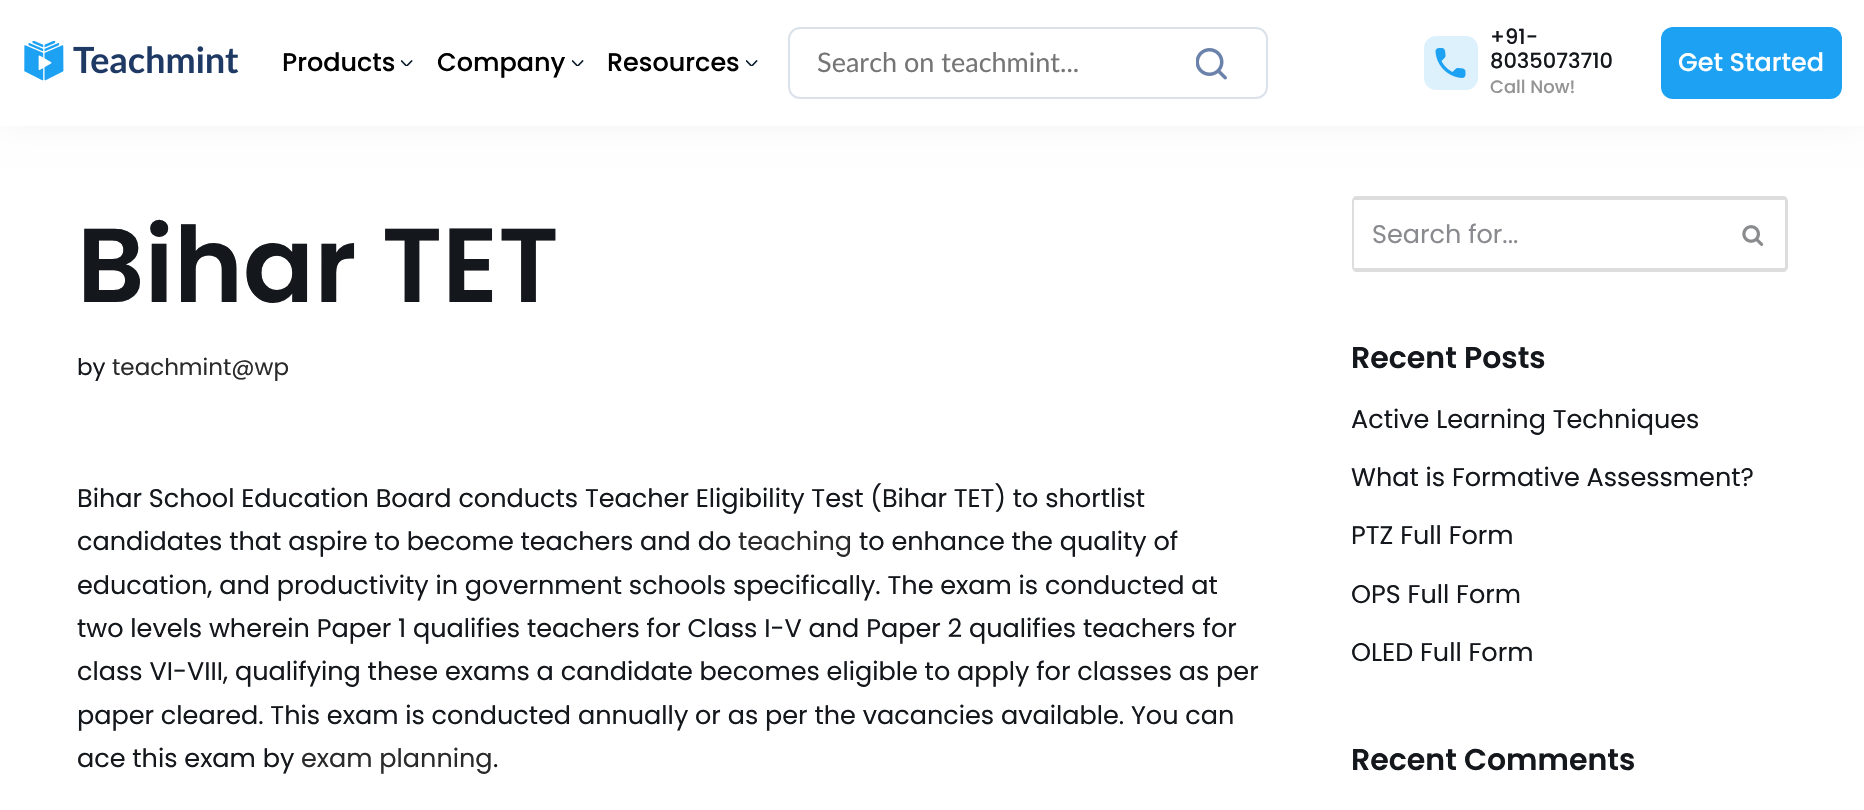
void draw(SkCanvas* canvas) {
	SkPaint fill;
	fill.setAntiAlias(true);
	auto makeFont = [&](const char* family, int weight, float size, bool italic = false) {
		SkFontStyle style(weight, SkFontStyle::kNormal_Width,
			italic ? SkFontStyle::kItalic_Slant : SkFontStyle::kUpright_Slant);
		SkFont result(fontMgr->matchFamilyStyle(family, style), size);
		result.setSubpixel(true);
		return result;
	};
	auto text = [&](const char* s, float x, float y, const SkFont& font) {
		canvas->drawString(s, x, y, font, fill);
	};
	auto box = [&](float l, float t, float r, float b) {
		canvas->drawRect(SkRect::MakeLTRB(l, t, r, b), fill);
	};
	auto roundBox = [&](float l, float t, float r, float b, float radius) {
		canvas->drawRoundRect(SkRect::MakeLTRB(l, t, r, b), radius, radius, fill);
	};
	auto picture = [&](const char* path, float l, float t, float r, float b) {
		auto image = SkImages::DeferredFromEncodedData(SkData::MakeFromFileName(path));
		canvas->drawImageRect(image, SkRect::MakeLTRB(l, t, r, b), SkSamplingOptions());
	};
	canvas->clear(0xFFFFFFFF);
	fill.setColor(0x1A000000);
	fill.setMaskFilter(SkMaskFilter::MakeBlur(kNormal_SkBlurStyle, 19.5f));
	canvas->drawRect(SkRect::MakeLTRB(0, -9, 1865, 111), fill);
	fill.setMaskFilter(nullptr);
	fill.setColor(0xFFFFFFFF);
	box(0, 0, 1864, 126);
	picture("image0.png", 24, 41, 239, 81);
	picture("image1.png", 401, 60, 413, 66);
	picture("image1.png", 572, 60, 584, 66);
	picture("image1.png", 746, 60, 758, 66);
	fill.setStyle(SkPaint::kStroke_Style);
	fill.setStrokeWidth(2);
	fill.setColor(0xFFDBE2EA);
	canvas->drawRoundRect(SkRect::MakeLTRB(789, 28, 1267, 98), 11, 11, fill);
	picture("image2.png", 1196, 48, 1227, 80);
	picture("image3.png", 1424, 36, 1478, 90);
	fill.setStyle(SkPaint::kFill_Style);
	fill.setColor(0xFF1DA1F2);
	roundBox(1661, 27, 1842, 99, 12);
	fill.setColor(0xFFDDDDDD);
	canvas->drawPath(SkPathBuilder(SkPathFillType::kEvenOdd).moveTo(1356, 196).lineTo(1720, 196).lineTo(1720, 272).lineTo(1356, 272).cubicTo(1354, 272, 1352, 269, 1352, 267).lineTo(1352, 201).cubicTo(1352, 199, 1354, 196, 1356, 196).close().moveTo(1356, 200).lineTo(1720, 200).lineTo(1720, 268).lineTo(1356, 268).cubicTo(1355, 268, 1354, 268, 1354, 267).lineTo(1354, 201).cubicTo(1354, 200, 1355, 200, 1356, 200).close().detach(), fill);
	canvas->drawPath(SkPathBuilder(SkPathFillType::kEvenOdd).moveTo(1720, 196).lineTo(1784, 196).cubicTo(1786, 196, 1788, 199, 1788, 201).lineTo(1788, 267).cubicTo(1788, 269, 1786, 272, 1784, 272).lineTo(1720, 272).close().moveTo(1720, 200).lineTo(1784, 200).cubicTo(1784, 200, 1785, 200, 1785, 201).lineTo(1785, 267).cubicTo(1785, 268, 1784, 268, 1784, 268).lineTo(1720, 268).close().detach(), fill);
	picture("image4.png", 1742, 225, 1764, 246);
	auto font1 = makeFont("Poppins", 500, 25.5f);
	fill.setColor(0xFF000000);
	text("Products", 282, 71, font1);
	text("Company", 437, 71, font1);
	text("Resources", 607, 71, font1);
	auto font2 = makeFont("Lato", 400, 27);
	fill.setColor(0xFF757575);
	text("Search on teachmint...", 817, 72, font2);
	auto font3 = makeFont("Poppins", 500, 21);
	fill.setColor(0xFF14171C);
	text("+91-", 1490, 44, font3);
	text("8035073710", 1490, 68, font3);
	auto font4 = makeFont("Poppins", 500, 18);
	fill.setColor(0xFF949494);
	text("Call Now!", 1490, 93, font4);
	fill.setColor(0xFFFFFFFF);
	text("Get Started", 1678, 71, font1);
	auto font5 = makeFont("Poppins", 600, 105);
	fill.setColor(0xFF14171C);
	text("Bihar TET", 77, 302, font5);
	auto font6 = makeFont("Poppins", 400, 23);
	text("by", 77, 375, font6);
	fill.setColor(0xFF2B2B2B);
	text("teachmint@wp", 112, 375, font6);
	auto font7 = makeFont("Poppins", 400, 25.5f);
	fill.setColor(0xFF14171C);
	text("Bihar School Education Board conducts Teacher Eligibility Test (Bihar TET) to shortlist", 77, 507, font7);
	text("candidates that aspire to become teachers and do", 77, 550, font7);
	fill.setColor(0xFF2B2B2B);
	text("teaching", 738, 550, font7);
	fill.setColor(0xFF14171C);
	text("to enhance the quality of", 859, 550, font7);
	text("education, and productivity in government schools specifically. The exam is conducted at", 77, 594, font7);
	text("two levels wherein Paper 1 qualifies teachers for Class I-V and Paper 2 qualifies teachers for", 77, 637, font7);
	text("class VI-VIII, qualifying these exams a candidate becomes eligible to apply for classes as per", 77, 680, font7);
	text("paper cleared. This exam is conducted annually or as per the vacancies available. You can", 77, 724, font7);
	text("ace this exam by", 77, 767, font7);
	fill.setColor(0xFF2B2B2B);
	text("exam planning", 301, 767, font7);
	fill.setColor(0xFF14171C);
	text(".", 493, 767, font7);
	fill.setColor(0xFF8A8B8E);
	text("Search for...", 1372, 243, font7);
	auto font8 = makeFont("Poppins", 600, 30);
	fill.setColor(0xFF14171C);
	text("Recent Posts", 1351, 368, font8);
	text("Active Learning Techniques", 1351, 428, font7);
	text("What is Formative Assessment?", 1351, 486, font7);
	text("PTZ Full Form", 1351, 544, font7);
	text("OPS Full Form", 1351, 603, font7);
	text("OLED Full Form", 1351, 661, font7);
	text("Recent Comments", 1351, 770, font8);
}
